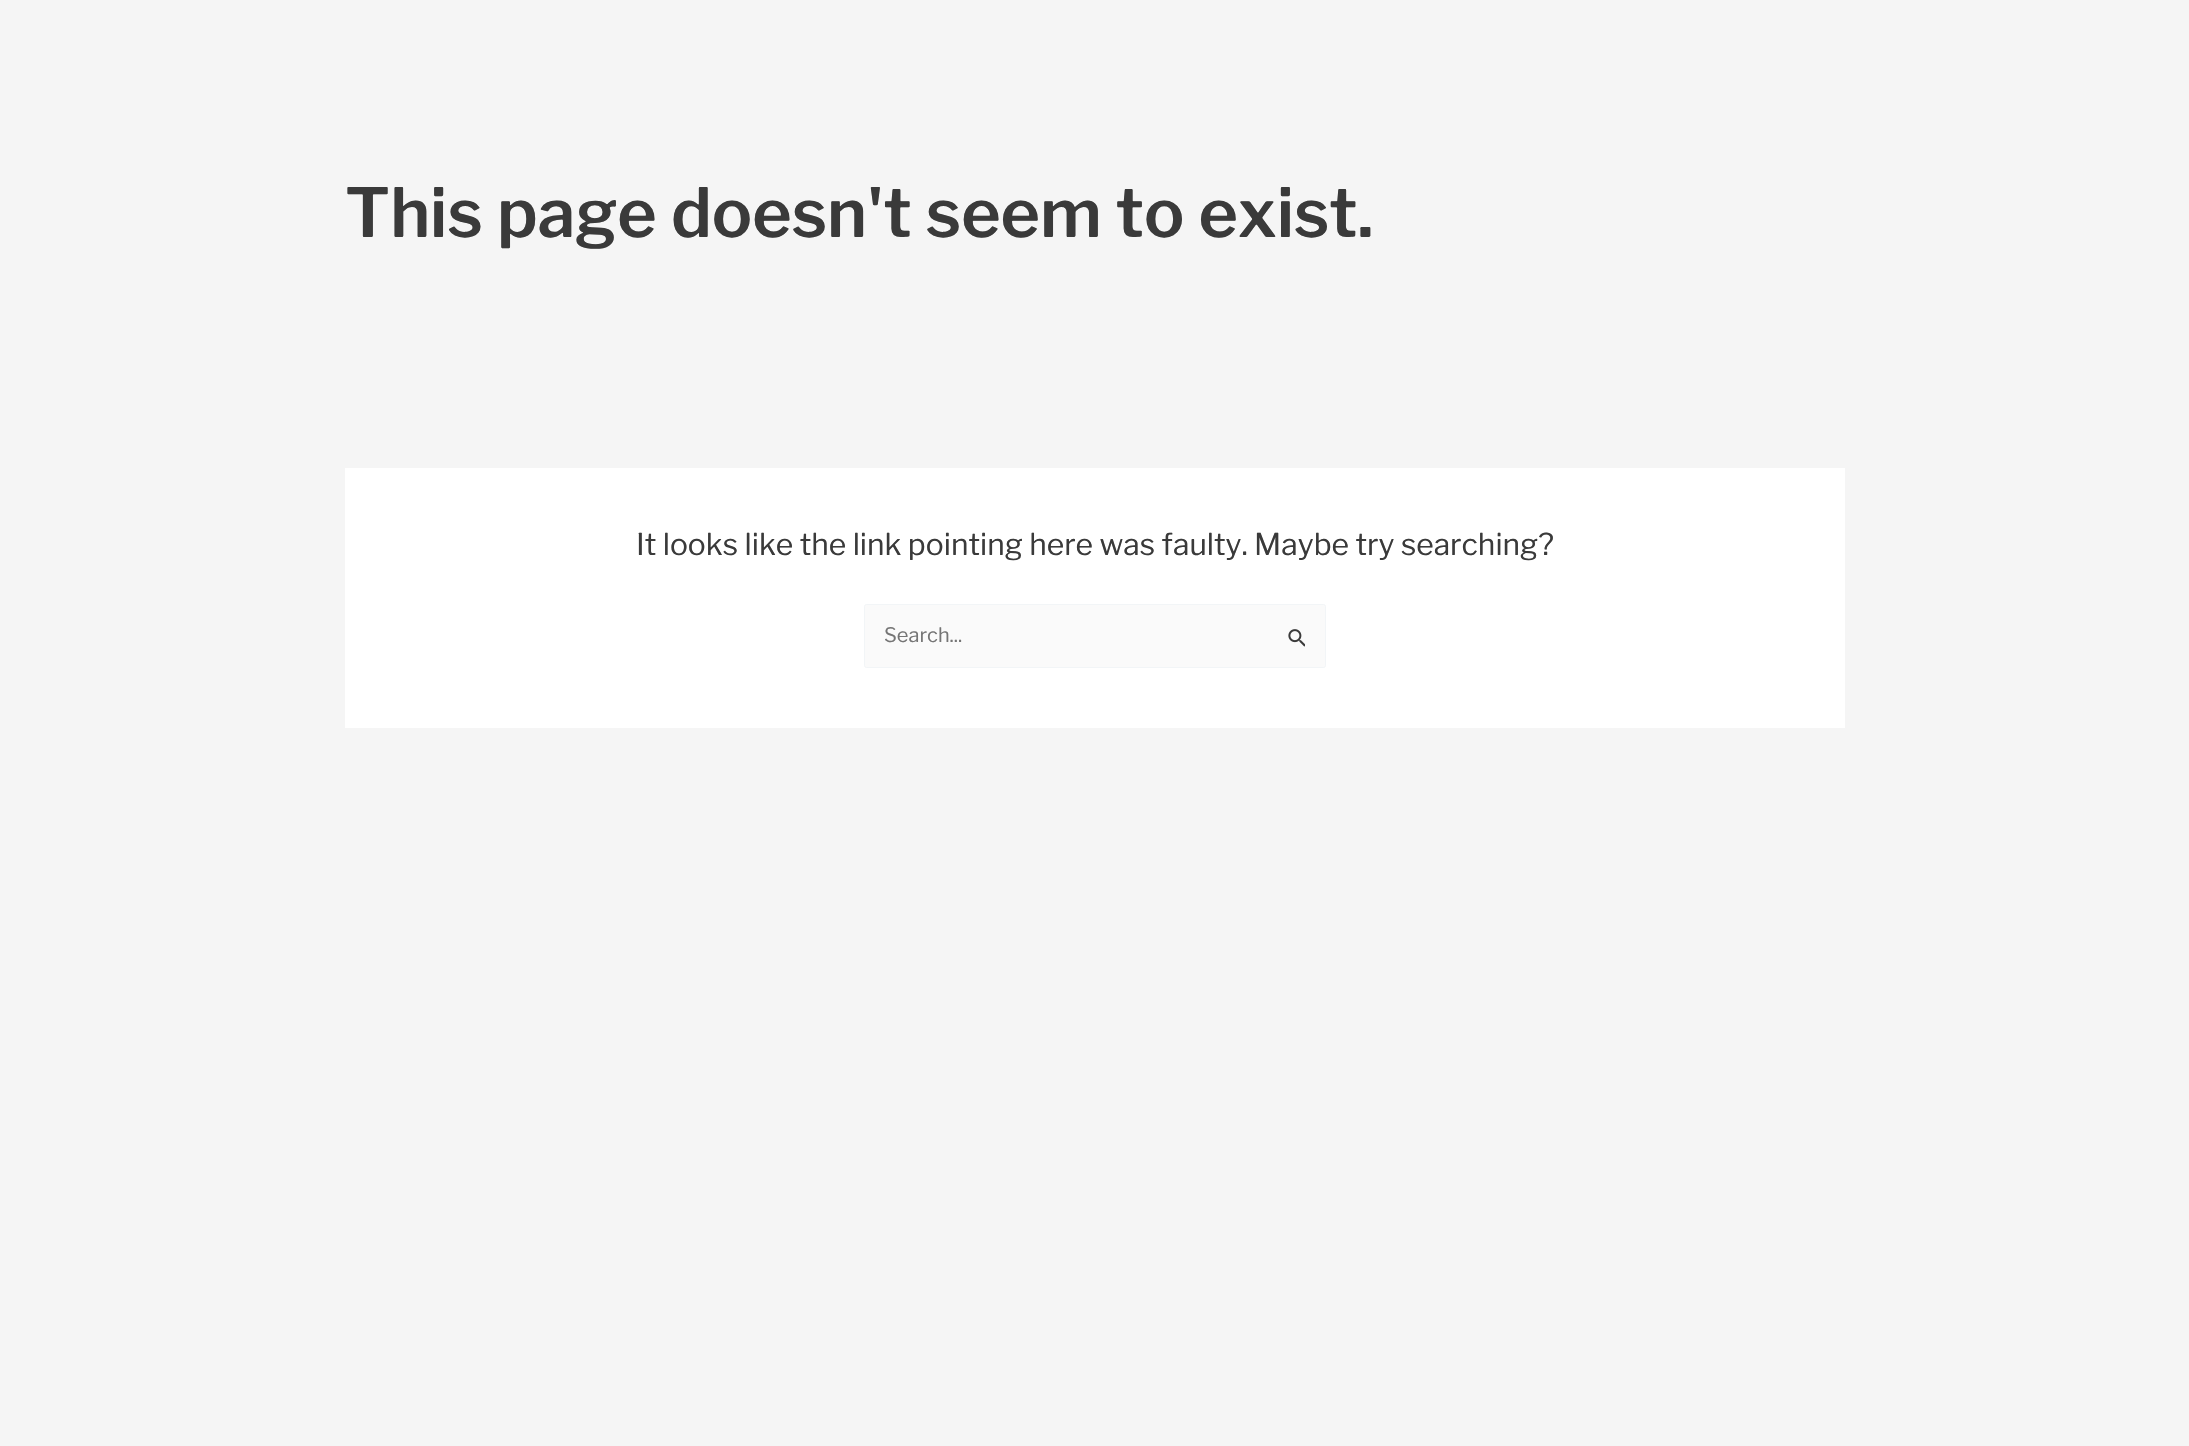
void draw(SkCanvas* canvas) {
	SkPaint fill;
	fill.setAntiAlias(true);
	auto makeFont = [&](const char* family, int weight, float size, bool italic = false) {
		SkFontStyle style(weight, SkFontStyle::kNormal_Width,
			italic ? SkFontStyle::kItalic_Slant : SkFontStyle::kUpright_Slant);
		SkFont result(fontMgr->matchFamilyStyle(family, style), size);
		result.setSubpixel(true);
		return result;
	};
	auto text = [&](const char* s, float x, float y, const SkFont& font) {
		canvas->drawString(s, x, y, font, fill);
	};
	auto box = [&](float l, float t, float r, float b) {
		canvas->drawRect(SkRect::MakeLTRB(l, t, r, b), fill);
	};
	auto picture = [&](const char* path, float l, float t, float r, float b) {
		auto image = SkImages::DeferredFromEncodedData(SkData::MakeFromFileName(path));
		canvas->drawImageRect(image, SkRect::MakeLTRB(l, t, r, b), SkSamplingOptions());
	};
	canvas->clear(0xFFF5F5F5);
	fill.setColor(0xFFFFFFFF);
	box(345, 468, 1845, 728);
	fill.setColor(0xFFFAFAFA);
	canvas->drawRoundRect(SkRect::MakeLTRB(864.5f, 604.5f, 1325.5f, 667.5f), 2, 2, fill);
	fill.setStyle(SkPaint::kStroke_Style);
	fill.setStrokeWidth(1);
	fill.setColor(0xFFF2F5F7);
	canvas->drawRoundRect(SkRect::MakeLTRB(864.5f, 604.5f, 1325.5f, 667.5f), 2, 2, fill);
	picture("image0.png", 1288, 629, 1305, 647);
	auto font1 = makeFont("Libre Franklin", 600, 67.5f);
	fill.setStyle(SkPaint::kFill_Style);
	fill.setColor(0xFF3A3A3A);
	text("This page doesn't seem to exist.", 345, 237, font1);
	auto font2 = makeFont("Libre Franklin", 400, 30);
	text("It looks like the link pointing here was faulty. Maybe try searching?", 636, 555, font2);
	auto font3 = makeFont("Libre Franklin", 400, 20);
	fill.setColor(0xFF757575);
	text("Search...", 884, 642, font3);
}
